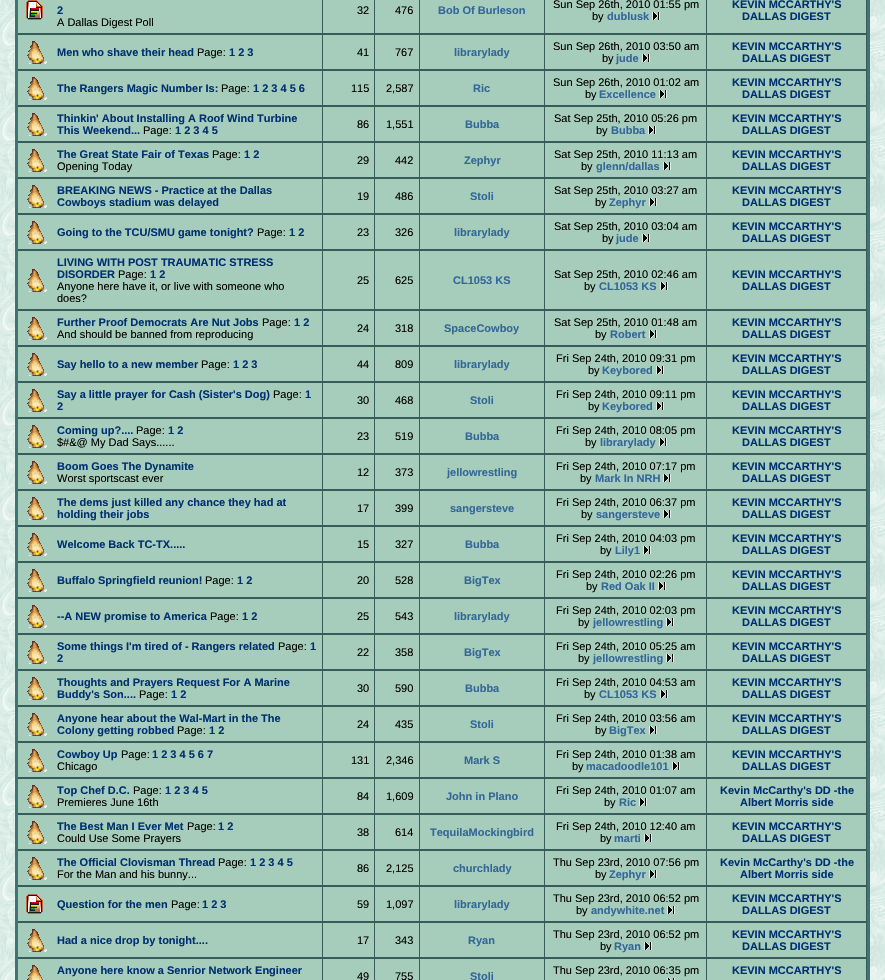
void draw(SkCanvas* canvas) {
	SkPaint fill;
	fill.setAntiAlias(true);
	auto makeFont = [&](const char* family, int weight, float size, bool italic = false) {
		SkFontStyle style(weight, SkFontStyle::kNormal_Width,
			italic ? SkFontStyle::kItalic_Slant : SkFontStyle::kUpright_Slant);
		SkFont result(fontMgr->matchFamilyStyle(family, style), size);
		result.setSubpixel(true);
		return result;
	};
	auto text = [&](const char* s, float x, float y, const SkFont& font) {
		canvas->drawString(s, x, y, font, fill);
	};
	auto box = [&](float l, float t, float r, float b) {
		canvas->drawRect(SkRect::MakeLTRB(l, t, r, b), fill);
	};
	auto picture = [&](const char* path, float l, float t, float r, float b) {
		auto image = SkImages::DeferredFromEncodedData(SkData::MakeFromFileName(path));
		canvas->drawImageRect(image, SkRect::MakeLTRB(l, t, r, b), SkSamplingOptions());
	};
	canvas->clear(0xFFFFFFFF);
	picture("image0.png", 0, 0, 885, 980);
	fill.setColor(0xFF427373);
	box(15, 0, 18, 980);
	fill.setColor(0xFFA6CCBB);
	box(18, 0, 866, 980);
	picture("image1.png", 26, 0, 43, 20);
	fill.setColor(0xFF375C5A);
	box(322, 0, 323, 33);
	box(374, 0, 375, 33);
	box(419, 0, 420, 33);
	box(544, 0, 545, 33);
	box(706, 0, 707, 33);
	picture("image2.png", 652, 12, 660, 20);
	box(866, 0, 867, 33);
	box(18, 33, 867, 35);
	picture("image3.png", 27, 41, 47, 64);
	box(322, 33, 323, 69);
	box(374, 33, 375, 69);
	box(419, 33, 420, 69);
	box(544, 33, 545, 69);
	box(706, 33, 707, 69);
	picture("image2.png", 642, 54, 650, 62);
	box(866, 33, 867, 69);
	box(18, 69, 867, 71);
	picture("image3.png", 27, 77, 47, 100);
	box(322, 69, 323, 105);
	box(374, 69, 375, 105);
	box(419, 69, 420, 105);
	box(544, 69, 545, 105);
	box(706, 69, 707, 105);
	picture("image2.png", 659, 90, 667, 98);
	box(866, 69, 867, 105);
	box(18, 105, 867, 107);
	picture("image3.png", 27, 113, 47, 136);
	box(322, 105, 323, 141);
	box(374, 105, 375, 141);
	box(419, 105, 420, 141);
	box(544, 105, 545, 141);
	box(706, 105, 707, 141);
	picture("image2.png", 648, 126, 656, 134);
	box(866, 105, 867, 141);
	box(18, 141, 867, 143);
	picture("image3.png", 27, 149, 47, 172);
	box(322, 141, 323, 177);
	box(374, 141, 375, 177);
	box(419, 141, 420, 177);
	box(544, 141, 545, 177);
	box(706, 141, 707, 177);
	picture("image2.png", 663, 162, 671, 170);
	box(866, 141, 867, 177);
	box(18, 177, 867, 179);
	picture("image3.png", 27, 185, 47, 208);
	box(322, 177, 323, 213);
	box(374, 177, 375, 213);
	box(419, 177, 420, 213);
	box(544, 177, 545, 213);
	box(706, 177, 707, 213);
	picture("image2.png", 649, 198, 657, 206);
	box(866, 177, 867, 213);
	box(18, 213, 867, 215);
	picture("image3.png", 27, 221, 47, 244);
	box(322, 213, 323, 249);
	box(374, 213, 375, 249);
	box(419, 213, 420, 249);
	box(544, 213, 545, 249);
	box(706, 213, 707, 249);
	picture("image2.png", 642, 234, 650, 242);
	box(866, 213, 867, 249);
	box(18, 249, 867, 251);
	picture("image3.png", 27, 269, 47, 292);
	box(322, 249, 323, 309);
	box(374, 249, 375, 309);
	box(419, 249, 420, 309);
	box(544, 249, 545, 309);
	box(706, 249, 707, 309);
	picture("image2.png", 660, 282, 668, 290);
	box(866, 249, 867, 309);
	box(18, 309, 867, 311);
	picture("image3.png", 27, 317, 47, 340);
	box(322, 309, 323, 345);
	box(374, 309, 375, 345);
	box(419, 309, 420, 345);
	box(544, 309, 545, 345);
	box(706, 309, 707, 345);
	picture("image2.png", 649, 330, 657, 338);
	box(866, 309, 867, 345);
	box(18, 345, 867, 347);
	picture("image3.png", 27, 353, 47, 376);
	box(322, 345, 323, 381);
	box(374, 345, 375, 381);
	box(419, 345, 420, 381);
	box(544, 345, 545, 381);
	box(706, 345, 707, 381);
	picture("image2.png", 656, 366, 664, 374);
	box(866, 345, 867, 381);
	box(18, 381, 867, 383);
	picture("image3.png", 27, 389, 47, 412);
	box(322, 381, 323, 417);
	box(374, 381, 375, 417);
	box(419, 381, 420, 417);
	box(544, 381, 545, 417);
	box(706, 381, 707, 417);
	picture("image2.png", 656, 402, 664, 410);
	box(866, 381, 867, 417);
	box(18, 417, 867, 419);
	picture("image3.png", 27, 425, 47, 448);
	box(322, 417, 323, 453);
	box(374, 417, 375, 453);
	box(419, 417, 420, 453);
	box(544, 417, 545, 453);
	box(706, 417, 707, 453);
	picture("image2.png", 659, 438, 667, 446);
	box(866, 417, 867, 453);
	box(18, 453, 867, 455);
	picture("image3.png", 27, 461, 47, 484);
	box(322, 453, 323, 489);
	box(374, 453, 375, 489);
	box(419, 453, 420, 489);
	box(544, 453, 545, 489);
	box(706, 453, 707, 489);
	picture("image2.png", 663, 474, 671, 482);
	box(866, 453, 867, 489);
	box(18, 489, 867, 491);
	picture("image3.png", 27, 497, 47, 520);
	box(322, 489, 323, 525);
	box(374, 489, 375, 525);
	box(419, 489, 420, 525);
	box(544, 489, 545, 525);
	box(706, 489, 707, 525);
	picture("image2.png", 663, 510, 671, 518);
	box(866, 489, 867, 525);
	box(18, 525, 867, 527);
	picture("image3.png", 27, 533, 47, 556);
	box(322, 525, 323, 561);
	box(374, 525, 375, 561);
	box(419, 525, 420, 561);
	box(544, 525, 545, 561);
	box(706, 525, 707, 561);
	picture("image2.png", 643, 546, 651, 554);
	box(866, 525, 867, 561);
	box(18, 561, 867, 563);
	picture("image3.png", 27, 569, 47, 592);
	box(322, 561, 323, 597);
	box(374, 561, 375, 597);
	box(419, 561, 420, 597);
	box(544, 561, 545, 597);
	box(706, 561, 707, 597);
	picture("image2.png", 658, 582, 666, 590);
	box(866, 561, 867, 597);
	box(18, 597, 867, 599);
	picture("image3.png", 27, 605, 47, 628);
	box(322, 597, 323, 633);
	box(374, 597, 375, 633);
	box(419, 597, 420, 633);
	box(544, 597, 545, 633);
	box(706, 597, 707, 633);
	picture("image2.png", 666, 618, 674, 626);
	box(866, 597, 867, 633);
	box(18, 633, 867, 635);
	picture("image3.png", 27, 641, 47, 664);
	box(322, 633, 323, 669);
	box(374, 633, 375, 669);
	box(419, 633, 420, 669);
	box(544, 633, 545, 669);
	box(706, 633, 707, 669);
	picture("image2.png", 666, 654, 674, 662);
	box(866, 633, 867, 669);
	box(18, 669, 867, 671);
	picture("image3.png", 27, 677, 47, 700);
	box(322, 669, 323, 705);
	box(374, 669, 375, 705);
	box(419, 669, 420, 705);
	box(544, 669, 545, 705);
	box(706, 669, 707, 705);
	picture("image2.png", 660, 690, 668, 698);
	box(866, 669, 867, 705);
	box(18, 705, 867, 707);
	picture("image3.png", 27, 713, 47, 736);
	box(322, 705, 323, 741);
	box(374, 705, 375, 741);
	box(419, 705, 420, 741);
	box(544, 705, 545, 741);
	box(706, 705, 707, 741);
	picture("image2.png", 649, 726, 657, 734);
	box(866, 705, 867, 741);
	box(18, 741, 867, 743);
	picture("image3.png", 27, 749, 47, 772);
	box(322, 741, 323, 777);
	box(374, 741, 375, 777);
	box(419, 741, 420, 777);
	box(544, 741, 545, 777);
	box(706, 741, 707, 777);
	picture("image2.png", 672, 762, 680, 770);
	box(866, 741, 867, 777);
	box(18, 777, 867, 779);
	picture("image3.png", 27, 785, 47, 808);
	box(322, 777, 323, 813);
	box(374, 777, 375, 813);
	box(419, 777, 420, 813);
	box(544, 777, 545, 813);
	box(706, 777, 707, 813);
	picture("image2.png", 639, 798, 647, 806);
	box(866, 777, 867, 813);
	box(18, 813, 867, 815);
	picture("image3.png", 27, 821, 47, 844);
	box(322, 813, 323, 849);
	box(374, 813, 375, 849);
	box(419, 813, 420, 849);
	box(544, 813, 545, 849);
	box(706, 813, 707, 849);
	picture("image2.png", 644, 834, 652, 842);
	box(866, 813, 867, 849);
	box(18, 849, 867, 851);
	picture("image3.png", 27, 857, 47, 880);
	box(322, 849, 323, 885);
	box(374, 849, 375, 885);
	box(419, 849, 420, 885);
	box(544, 849, 545, 885);
	box(706, 849, 707, 885);
	picture("image2.png", 649, 870, 657, 878);
	box(866, 849, 867, 885);
	box(18, 885, 867, 887);
	picture("image1.png", 26, 894, 43, 914);
	box(322, 885, 323, 921);
	box(374, 885, 375, 921);
	box(419, 885, 420, 921);
	box(544, 885, 545, 921);
	box(706, 885, 707, 921);
	picture("image2.png", 667, 906, 675, 914);
	box(866, 885, 867, 921);
	box(18, 921, 867, 923);
	picture("image3.png", 27, 929, 47, 952);
	box(322, 921, 323, 957);
	box(374, 921, 375, 957);
	box(419, 921, 420, 957);
	box(544, 921, 545, 957);
	box(706, 921, 707, 957);
	picture("image2.png", 644, 942, 652, 950);
	box(866, 921, 867, 957);
	box(18, 957, 867, 959);
	picture("image4.png", 27, 965, 43, 980);
	box(322, 957, 323, 980);
	box(706, 957, 707, 980);
	picture("image5.png", 667, 978, 675, 980);
	box(866, 957, 867, 980);
	box(374, 957, 375, 980);
	box(419, 957, 420, 980);
	box(544, 957, 545, 980);
	fill.setColor(0xFF427373);
	box(867, 0, 870, 980);
	auto font1 = makeFont("Liberation Sans", 700, 11);
	fill.setColor(0xFF003070);
	text("2", 57, 14, font1);
	auto font2 = makeFont("Liberation Sans", 400, 11);
	fill.setColor(0xFF000000);
	text("A Dallas Digest Poll", 57, 26, font2);
	text("32", 357, 14, font2);
	text("476", 395, 14, font2);
	fill.setColor(0xFF336699);
	text("Bob Of Burleson", 438, 14, font1);
	fill.setColor(0xFF000000);
	text("Sun Sep 26th, 2010 01:55 pm", 553, 8, font2);
	text("by", 592, 20, font2);
	fill.setColor(0xFF336699);
	text("dublusk", 607, 20, font1);
	fill.setColor(0xFF003070);
	text("KEVIN MCCARTHY'S", 732, 8, font1);
	text("DALLAS DIGEST", 742, 20, font1);
	text("Men who shave their head", 57, 56, font1);
	fill.setColor(0xFF000000);
	text("Page:", 197, 56, font2);
	fill.setColor(0xFF003070);
	text("1 2 3", 229, 56, font1);
	fill.setColor(0xFF000000);
	text("41", 357, 56, font2);
	text("767", 395, 56, font2);
	fill.setColor(0xFF336699);
	text("librarylady", 454, 56, font1);
	fill.setColor(0xFF000000);
	text("Sun Sep 26th, 2010 03:50 am", 553, 50, font2);
	text("by", 602, 62, font2);
	fill.setColor(0xFF336699);
	text("jude", 616, 62, font1);
	fill.setColor(0xFF003070);
	text("KEVIN MCCARTHY'S", 732, 50, font1);
	text("DALLAS DIGEST", 742, 62, font1);
	text("The Rangers Magic Number Is:", 57, 92, font1);
	fill.setColor(0xFF000000);
	text("Page:", 221, 92, font2);
	fill.setColor(0xFF003070);
	text("1 2 3 4 5 6", 253, 92, font1);
	fill.setColor(0xFF000000);
	text("115", 351, 92, font2);
	text("2,587", 386, 92, font2);
	fill.setColor(0xFF336699);
	text("Ric", 473, 92, font1);
	fill.setColor(0xFF000000);
	text("Sun Sep 26th, 2010 01:02 am", 553, 86, font2);
	text("by", 585, 98, font2);
	fill.setColor(0xFF336699);
	text("Excellence", 599, 98, font1);
	fill.setColor(0xFF003070);
	text("KEVIN MCCARTHY'S", 732, 86, font1);
	text("DALLAS DIGEST", 742, 98, font1);
	text("Thinkin' About Installing A Roof Wind Turbine", 57, 122, font1);
	text("This Weekend...", 57, 134, font1);
	fill.setColor(0xFF000000);
	text("Page:", 143, 134, font2);
	fill.setColor(0xFF003070);
	text("1 2 3 4 5", 175, 134, font1);
	fill.setColor(0xFF000000);
	text("86", 357, 128, font2);
	text("1,551", 386, 128, font2);
	fill.setColor(0xFF336699);
	text("Bubba", 465, 128, font1);
	fill.setColor(0xFF000000);
	text("Sat Sep 25th, 2010 05:26 pm", 554, 122, font2);
	text("by", 596, 134, font2);
	fill.setColor(0xFF336699);
	text("Bubba", 611, 134, font1);
	fill.setColor(0xFF003070);
	text("KEVIN MCCARTHY'S", 732, 122, font1);
	text("DALLAS DIGEST", 742, 134, font1);
	text("The Great State Fair of Texas", 57, 158, font1);
	fill.setColor(0xFF000000);
	text("Page:", 212, 158, font2);
	fill.setColor(0xFF003070);
	text("1 2", 244, 158, font1);
	fill.setColor(0xFF000000);
	text("Opening Today", 57, 170, font2);
	text("29", 357, 164, font2);
	text("442", 395, 164, font2);
	fill.setColor(0xFF336699);
	text("Zephyr", 464, 164, font1);
	fill.setColor(0xFF000000);
	text("Sat Sep 25th, 2010 11:13 am", 554, 158, font2);
	text("by", 581, 170, font2);
	fill.setColor(0xFF336699);
	text("glenn/dallas", 596, 170, font1);
	fill.setColor(0xFF003070);
	text("KEVIN MCCARTHY'S", 732, 158, font1);
	text("DALLAS DIGEST", 742, 170, font1);
	text("BREAKING NEWS - Practice at the Dallas", 57, 194, font1);
	text("Cowboys stadium was delayed", 57, 206, font1);
	fill.setColor(0xFF000000);
	text("19", 357, 200, font2);
	text("486", 395, 200, font2);
	fill.setColor(0xFF336699);
	text("Stoli", 470, 200, font1);
	fill.setColor(0xFF000000);
	text("Sat Sep 25th, 2010 03:27 am", 554, 194, font2);
	text("by", 595, 206, font2);
	fill.setColor(0xFF336699);
	text("Zephyr", 609, 206, font1);
	fill.setColor(0xFF003070);
	text("KEVIN MCCARTHY'S", 732, 194, font1);
	text("DALLAS DIGEST", 742, 206, font1);
	text("Going to the TCU/SMU game tonight?", 57, 236, font1);
	fill.setColor(0xFF000000);
	text("Page:", 257, 236, font2);
	fill.setColor(0xFF003070);
	text("1 2", 289, 236, font1);
	fill.setColor(0xFF000000);
	text("23", 357, 236, font2);
	text("326", 395, 236, font2);
	fill.setColor(0xFF336699);
	text("librarylady", 454, 236, font1);
	fill.setColor(0xFF000000);
	text("Sat Sep 25th, 2010 03:04 am", 554, 230, font2);
	text("by", 602, 242, font2);
	fill.setColor(0xFF336699);
	text("jude", 616, 242, font1);
	fill.setColor(0xFF003070);
	text("KEVIN MCCARTHY'S", 732, 230, font1);
	text("DALLAS DIGEST", 742, 242, font1);
	text("LIVING WITH POST TRAUMATIC STRESS", 57, 266, font1);
	text("DISORDER", 57, 278, font1);
	fill.setColor(0xFF000000);
	text("Page:", 118, 278, font2);
	fill.setColor(0xFF003070);
	text("1 2", 150, 278, font1);
	fill.setColor(0xFF000000);
	text("Anyone here have it, or live with someone who", 57, 290, font2);
	text("does?", 57, 302, font2);
	text("25", 357, 284, font2);
	text("625", 395, 284, font2);
	fill.setColor(0xFF336699);
	text("CL1053 KS", 453, 284, font1);
	fill.setColor(0xFF000000);
	text("Sat Sep 25th, 2010 02:46 am", 554, 278, font2);
	text("by", 584, 290, font2);
	fill.setColor(0xFF336699);
	text("CL1053 KS", 599, 290, font1);
	fill.setColor(0xFF003070);
	text("KEVIN MCCARTHY'S", 732, 278, font1);
	text("DALLAS DIGEST", 742, 290, font1);
	text("Further Proof Democrats Are Nut Jobs", 57, 326, font1);
	fill.setColor(0xFF000000);
	text("Page:", 262, 326, font2);
	fill.setColor(0xFF003070);
	text("1 2", 294, 326, font1);
	fill.setColor(0xFF000000);
	text("And should be banned from reproducing", 57, 338, font2);
	text("24", 357, 332, font2);
	text("318", 395, 332, font2);
	fill.setColor(0xFF336699);
	text("SpaceCowboy", 444, 332, font1);
	fill.setColor(0xFF000000);
	text("Sat Sep 25th, 2010 01:48 am", 554, 326, font2);
	text("by", 595, 338, font2);
	fill.setColor(0xFF336699);
	text("Robert", 610, 338, font1);
	fill.setColor(0xFF003070);
	text("KEVIN MCCARTHY'S", 732, 326, font1);
	text("DALLAS DIGEST", 742, 338, font1);
	text("Say hello to a new member", 57, 368, font1);
	fill.setColor(0xFF000000);
	text("Page:", 201, 368, font2);
	fill.setColor(0xFF003070);
	text("1 2 3", 233, 368, font1);
	fill.setColor(0xFF000000);
	text("44", 357, 368, font2);
	text("809", 395, 368, font2);
	fill.setColor(0xFF336699);
	text("librarylady", 454, 368, font1);
	fill.setColor(0xFF000000);
	text("Fri Sep 24th, 2010 09:31 pm", 556, 362, font2);
	text("by", 588, 374, font2);
	fill.setColor(0xFF336699);
	text("Keybored", 602, 374, font1);
	fill.setColor(0xFF003070);
	text("KEVIN MCCARTHY'S", 732, 362, font1);
	text("DALLAS DIGEST", 742, 374, font1);
	text("Say a little prayer for Cash (Sister's Dog)", 57, 398, font1);
	fill.setColor(0xFF000000);
	text("Page:", 273, 398, font2);
	fill.setColor(0xFF003070);
	text("1", 305, 398, font1);
	text("2", 57, 410, font1);
	fill.setColor(0xFF000000);
	text("30", 357, 404, font2);
	text("468", 395, 404, font2);
	fill.setColor(0xFF336699);
	text("Stoli", 470, 404, font1);
	fill.setColor(0xFF000000);
	text("Fri Sep 24th, 2010 09:11 pm", 556, 398, font2);
	text("by", 588, 410, font2);
	fill.setColor(0xFF336699);
	text("Keybored", 602, 410, font1);
	fill.setColor(0xFF003070);
	text("KEVIN MCCARTHY'S", 732, 398, font1);
	text("DALLAS DIGEST", 742, 410, font1);
	text("Coming up?....", 57, 434, font1);
	fill.setColor(0xFF000000);
	text("Page:", 136, 434, font2);
	fill.setColor(0xFF003070);
	text("1 2", 168, 434, font1);
	fill.setColor(0xFF000000);
	text("$#&@ My Dad Says......", 57, 446, font2);
	text("23", 357, 440, font2);
	text("519", 395, 440, font2);
	fill.setColor(0xFF336699);
	text("Bubba", 465, 440, font1);
	fill.setColor(0xFF000000);
	text("Fri Sep 24th, 2010 08:05 pm", 556, 434, font2);
	text("by", 585, 446, font2);
	fill.setColor(0xFF336699);
	text("librarylady", 600, 446, font1);
	fill.setColor(0xFF003070);
	text("KEVIN MCCARTHY'S", 732, 434, font1);
	text("DALLAS DIGEST", 742, 446, font1);
	text("Boom Goes The Dynamite", 57, 470, font1);
	fill.setColor(0xFF000000);
	text("Worst sportscast ever", 57, 482, font2);
	text("12", 357, 476, font2);
	text("373", 395, 476, font2);
	fill.setColor(0xFF336699);
	text("jellowrestling", 447, 476, font1);
	fill.setColor(0xFF000000);
	text("Fri Sep 24th, 2010 07:17 pm", 556, 470, font2);
	text("by", 580, 482, font2);
	fill.setColor(0xFF336699);
	text("Mark In NRH", 595, 482, font1);
	fill.setColor(0xFF003070);
	text("KEVIN MCCARTHY'S", 732, 470, font1);
	text("DALLAS DIGEST", 742, 482, font1);
	text("The dems just killed any chance they had at", 57, 506, font1);
	text("holding their jobs", 57, 518, font1);
	fill.setColor(0xFF000000);
	text("17", 357, 512, font2);
	text("399", 395, 512, font2);
	fill.setColor(0xFF336699);
	text("sangersteve", 450, 512, font1);
	fill.setColor(0xFF000000);
	text("Fri Sep 24th, 2010 06:37 pm", 556, 506, font2);
	text("by", 581, 518, font2);
	fill.setColor(0xFF336699);
	text("sangersteve", 596, 518, font1);
	fill.setColor(0xFF003070);
	text("KEVIN MCCARTHY'S", 732, 506, font1);
	text("DALLAS DIGEST", 742, 518, font1);
	text("Welcome Back TC-TX.....", 57, 548, font1);
	fill.setColor(0xFF000000);
	text("15", 357, 548, font2);
	text("327", 395, 548, font2);
	fill.setColor(0xFF336699);
	text("Bubba", 465, 548, font1);
	fill.setColor(0xFF000000);
	text("Fri Sep 24th, 2010 04:03 pm", 556, 542, font2);
	text("by", 600, 554, font2);
	fill.setColor(0xFF336699);
	text("Lily1", 615, 554, font1);
	fill.setColor(0xFF003070);
	text("KEVIN MCCARTHY'S", 732, 542, font1);
	text("DALLAS DIGEST", 742, 554, font1);
	text("Buffalo Springfield reunion!", 57, 584, font1);
	fill.setColor(0xFF000000);
	text("Page:", 205, 584, font2);
	fill.setColor(0xFF003070);
	text("1 2", 237, 584, font1);
	fill.setColor(0xFF000000);
	text("20", 357, 584, font2);
	text("528", 395, 584, font2);
	fill.setColor(0xFF336699);
	text("BigTex", 464, 584, font1);
	fill.setColor(0xFF000000);
	text("Fri Sep 24th, 2010 02:26 pm", 556, 578, font2);
	text("by", 586, 590, font2);
	fill.setColor(0xFF336699);
	text("Red Oak II", 601, 590, font1);
	fill.setColor(0xFF003070);
	text("KEVIN MCCARTHY'S", 732, 578, font1);
	text("DALLAS DIGEST", 742, 590, font1);
	text("--A NEW promise to America", 57, 620, font1);
	fill.setColor(0xFF000000);
	text("Page:", 210, 620, font2);
	fill.setColor(0xFF003070);
	text("1 2", 242, 620, font1);
	fill.setColor(0xFF000000);
	text("25", 357, 620, font2);
	text("543", 395, 620, font2);
	fill.setColor(0xFF336699);
	text("librarylady", 454, 620, font1);
	fill.setColor(0xFF000000);
	text("Fri Sep 24th, 2010 02:03 pm", 556, 614, font2);
	text("by", 578, 626, font2);
	fill.setColor(0xFF336699);
	text("jellowrestling", 593, 626, font1);
	fill.setColor(0xFF003070);
	text("KEVIN MCCARTHY'S", 732, 614, font1);
	text("DALLAS DIGEST", 742, 626, font1);
	text("Some things I'm tired of - Rangers related", 57, 650, font1);
	fill.setColor(0xFF000000);
	text("Page:", 278, 650, font2);
	fill.setColor(0xFF003070);
	text("1", 310, 650, font1);
	text("2", 57, 662, font1);
	fill.setColor(0xFF000000);
	text("22", 357, 656, font2);
	text("358", 395, 656, font2);
	fill.setColor(0xFF336699);
	text("BigTex", 464, 656, font1);
	fill.setColor(0xFF000000);
	text("Fri Sep 24th, 2010 05:25 am", 556, 650, font2);
	text("by", 578, 662, font2);
	fill.setColor(0xFF336699);
	text("jellowrestling", 593, 662, font1);
	fill.setColor(0xFF003070);
	text("KEVIN MCCARTHY'S", 732, 650, font1);
	text("DALLAS DIGEST", 742, 662, font1);
	text("Thoughts and Prayers Request For A Marine", 57, 686, font1);
	text("Buddy's Son....", 57, 698, font1);
	fill.setColor(0xFF000000);
	text("Page:", 139, 698, font2);
	fill.setColor(0xFF003070);
	text("1 2", 171, 698, font1);
	fill.setColor(0xFF000000);
	text("30", 357, 692, font2);
	text("590", 395, 692, font2);
	fill.setColor(0xFF336699);
	text("Bubba", 465, 692, font1);
	fill.setColor(0xFF000000);
	text("Fri Sep 24th, 2010 04:53 am", 556, 686, font2);
	text("by", 584, 698, font2);
	fill.setColor(0xFF336699);
	text("CL1053 KS", 599, 698, font1);
	fill.setColor(0xFF003070);
	text("KEVIN MCCARTHY'S", 732, 686, font1);
	text("DALLAS DIGEST", 742, 698, font1);
	text("Anyone hear about the Wal-Mart in the The", 57, 722, font1);
	text("Colony getting robbed", 57, 734, font1);
	fill.setColor(0xFF000000);
	text("Page:", 177, 734, font2);
	fill.setColor(0xFF003070);
	text("1 2", 209, 734, font1);
	fill.setColor(0xFF000000);
	text("24", 357, 728, font2);
	text("435", 395, 728, font2);
	fill.setColor(0xFF336699);
	text("Stoli", 470, 728, font1);
	fill.setColor(0xFF000000);
	text("Fri Sep 24th, 2010 03:56 am", 556, 722, font2);
	text("by", 595, 734, font2);
	fill.setColor(0xFF336699);
	text("BigTex", 609, 734, font1);
	fill.setColor(0xFF003070);
	text("KEVIN MCCARTHY'S", 732, 722, font1);
	text("DALLAS DIGEST", 742, 734, font1);
	text("Cowboy Up", 57, 758, font1);
	fill.setColor(0xFF000000);
	text("Page:", 121, 758, font2);
	fill.setColor(0xFF003070);
	text("1 2 3 4 5 6 7", 152, 758, font1);
	fill.setColor(0xFF000000);
	text("Chicago", 57, 770, font2);
	text("131", 351, 764, font2);
	text("2,346", 386, 764, font2);
	fill.setColor(0xFF336699);
	text("Mark S", 464, 764, font1);
	fill.setColor(0xFF000000);
	text("Fri Sep 24th, 2010 01:38 am", 556, 758, font2);
	text("by", 572, 770, font2);
	fill.setColor(0xFF336699);
	text("macadoodle101", 586, 770, font1);
	fill.setColor(0xFF003070);
	text("KEVIN MCCARTHY'S", 732, 758, font1);
	text("DALLAS DIGEST", 742, 770, font1);
	text("Top Chef D.C.", 57, 794, font1);
	fill.setColor(0xFF000000);
	text("Page:", 133, 794, font2);
	fill.setColor(0xFF003070);
	text("1 2 3 4 5", 165, 794, font1);
	fill.setColor(0xFF000000);
	text("Premieres June 16th", 57, 806, font2);
	text("84", 357, 800, font2);
	text("1,609", 386, 800, font2);
	fill.setColor(0xFF336699);
	text("John in Plano", 446, 800, font1);
	fill.setColor(0xFF000000);
	text("Fri Sep 24th, 2010 01:07 am", 556, 794, font2);
	text("by", 604, 806, font2);
	fill.setColor(0xFF336699);
	text("Ric", 619, 806, font1);
	fill.setColor(0xFF003070);
	text("Kevin McCarthy's DD -the", 720, 794, font1);
	text("Albert Morris side", 740, 806, font1);
	text("The Best Man I Ever Met", 57, 830, font1);
	fill.setColor(0xFF000000);
	text("Page:", 187, 830, font2);
	fill.setColor(0xFF003070);
	text("1 2", 218, 830, font1);
	fill.setColor(0xFF000000);
	text("Could Use Some Prayers", 57, 842, font2);
	text("38", 357, 836, font2);
	text("614", 395, 836, font2);
	fill.setColor(0xFF336699);
	text("TequilaMockingbird", 430, 836, font1);
	fill.setColor(0xFF000000);
	text("Fri Sep 24th, 2010 12:40 am", 556, 830, font2);
	text("by", 600, 842, font2);
	fill.setColor(0xFF336699);
	text("marti", 614, 842, font1);
	fill.setColor(0xFF003070);
	text("KEVIN MCCARTHY'S", 732, 830, font1);
	text("DALLAS DIGEST", 742, 842, font1);
	text("The Official Clovisman Thread", 57, 866, font1);
	fill.setColor(0xFF000000);
	text("Page:", 218, 866, font2);
	fill.setColor(0xFF003070);
	text("1 2 3 4 5", 250, 866, font1);
	fill.setColor(0xFF000000);
	text("For the Man and his bunny...", 57, 878, font2);
	text("86", 357, 872, font2);
	text("2,125", 386, 872, font2);
	fill.setColor(0xFF336699);
	text("churchlady", 453, 872, font1);
	fill.setColor(0xFF000000);
	text("Thu Sep 23rd, 2010 07:56 pm", 553, 866, font2);
	text("by", 595, 878, font2);
	fill.setColor(0xFF336699);
	text("Zephyr", 609, 878, font1);
	fill.setColor(0xFF003070);
	text("Kevin McCarthy's DD -the", 720, 866, font1);
	text("Albert Morris side", 740, 878, font1);
	text("Question for the men", 57, 908, font1);
	fill.setColor(0xFF000000);
	text("Page:", 171, 908, font2);
	fill.setColor(0xFF003070);
	text("1 2 3", 202, 908, font1);
	fill.setColor(0xFF000000);
	text("59", 357, 908, font2);
	text("1,097", 386, 908, font2);
	fill.setColor(0xFF336699);
	text("librarylady", 454, 908, font1);
	fill.setColor(0xFF000000);
	text("Thu Sep 23rd, 2010 06:52 pm", 553, 902, font2);
	text("by", 576, 914, font2);
	fill.setColor(0xFF336699);
	text("andywhite.net", 591, 914, font1);
	fill.setColor(0xFF003070);
	text("KEVIN MCCARTHY'S", 732, 902, font1);
	text("DALLAS DIGEST", 742, 914, font1);
	text("Had a nice drop by tonight....", 57, 944, font1);
	fill.setColor(0xFF000000);
	text("17", 357, 944, font2);
	text("343", 395, 944, font2);
	fill.setColor(0xFF336699);
	text("Ryan", 468, 944, font1);
	fill.setColor(0xFF000000);
	text("Thu Sep 23rd, 2010 06:52 pm", 553, 938, font2);
	text("by", 600, 950, font2);
	fill.setColor(0xFF336699);
	text("Ryan", 614, 950, font1);
	fill.setColor(0xFF003070);
	text("KEVIN MCCARTHY'S", 732, 938, font1);
	text("DALLAS DIGEST", 742, 950, font1);
	text("Anyone here know a Senrior Network Engineer", 57, 974, font1);
	fill.setColor(0xFF000000);
	text("Thu Sep 23rd, 2010 06:35 pm", 553, 974, font2);
	fill.setColor(0xFF003070);
	text("KEVIN MCCARTHY'S", 732, 974, font1);
	fill.setColor(0xFF000000);
	text("49", 357, 980, font2);
	text("755", 395, 980, font2);
	fill.setColor(0xFF336699);
	text("Stoli", 470, 980, font1);
}
